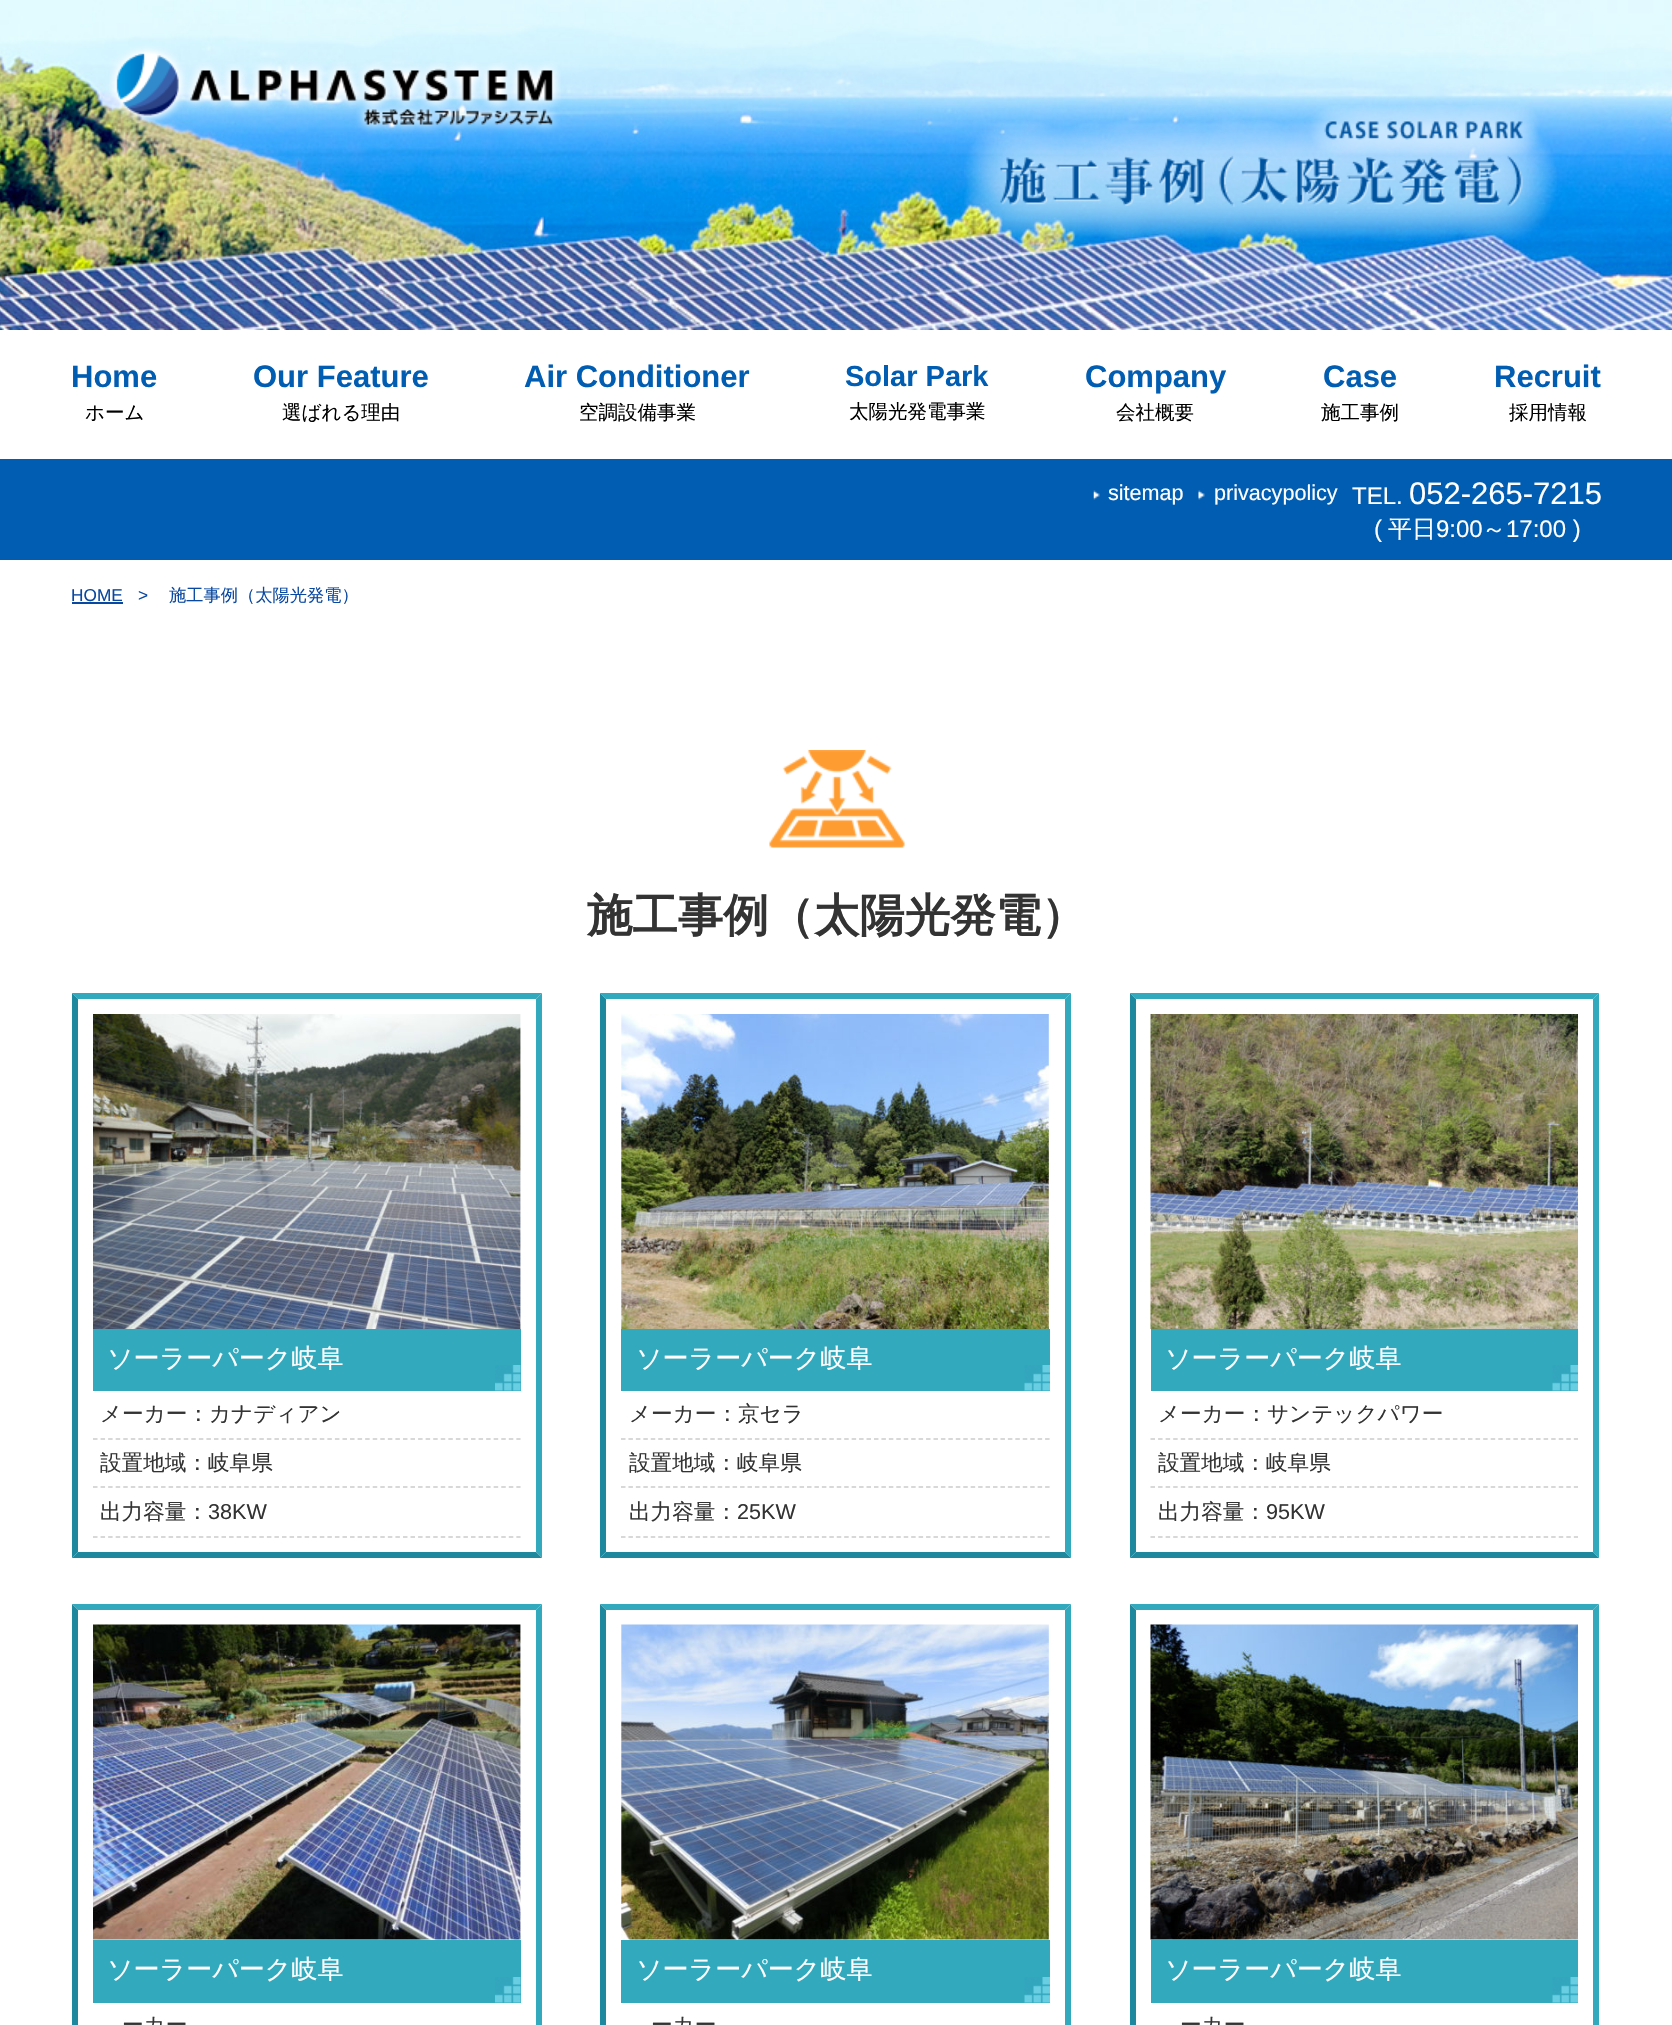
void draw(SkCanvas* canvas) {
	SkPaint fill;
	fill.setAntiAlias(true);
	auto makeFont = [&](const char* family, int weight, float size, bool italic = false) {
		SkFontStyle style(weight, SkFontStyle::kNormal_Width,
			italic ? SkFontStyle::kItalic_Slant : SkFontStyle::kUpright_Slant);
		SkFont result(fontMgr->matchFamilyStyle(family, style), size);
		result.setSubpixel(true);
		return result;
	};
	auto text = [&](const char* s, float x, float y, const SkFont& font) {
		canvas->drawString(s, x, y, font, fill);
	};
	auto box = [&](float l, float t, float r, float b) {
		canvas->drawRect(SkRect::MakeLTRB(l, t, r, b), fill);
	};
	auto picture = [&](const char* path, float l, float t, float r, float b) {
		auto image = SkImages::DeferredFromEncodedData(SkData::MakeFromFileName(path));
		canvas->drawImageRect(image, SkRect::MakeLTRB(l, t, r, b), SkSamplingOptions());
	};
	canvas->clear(0xFFFFFFFF);
	picture("image1.png", 0, 0, 1672, 330);
	picture("image0.png", 109, 46, 561, 134);
	picture("image2.png", 964, 105, 1557, 242);
	fill.setColor(0xFF015DB2);
	box(0, 459, 1672, 560);
	picture("image3.png", 1093, 490, 1100, 500);
	picture("image4.png", 1198, 490, 1205, 500);
	fill.setColor(0xFF0948A0);
	box(72, 602, 123, 604);
	picture("image5.png", 769, 750, 905, 848);
	fill.setColor(0xFF32A9BD);
	canvas->drawPath(SkPathBuilder().moveTo(72, 993).lineTo(542, 993).lineTo(536, 999).lineTo(78, 999).close().detach(), fill);
	canvas->drawPath(SkPathBuilder().moveTo(542, 993).lineTo(542, 1558).lineTo(536, 1552).lineTo(536, 999).close().detach(), fill);
	fill.setColor(0xFF1E899E);
	canvas->drawPath(SkPathBuilder().moveTo(542, 1558).lineTo(72, 1558).lineTo(78, 1552).lineTo(536, 1552).close().detach(), fill);
	canvas->drawPath(SkPathBuilder().moveTo(72, 1558).lineTo(72, 993).lineTo(78, 999).lineTo(78, 1552).close().detach(), fill);
	picture("image6.png", 93, 1014, 521, 1329);
	fill.setColor(0xFF32A9BD);
	box(93, 1329, 521, 1391);
	picture("image7.png", 495, 1365, 521, 1391);
	fill.setStyle(SkPaint::kStroke_Style);
	fill.setStrokeWidth(1.5f);
	fill.setColor(0xFFCCCCCC);
	fill.setPathEffect(SkDashPathEffect::Make({{4.5f, 3.06f}}, 0));
	canvas->drawPath(SkPathBuilder().moveTo(93, 1439).lineTo(520.5f, 1439).detach(), fill);
	fill.setPathEffect(nullptr);
	fill.setPathEffect(SkDashPathEffect::Make({{4.5f, 3.06f}}, 0));
	canvas->drawPath(SkPathBuilder().moveTo(93, 1487).lineTo(520.5f, 1487).detach(), fill);
	fill.setPathEffect(nullptr);
	fill.setPathEffect(SkDashPathEffect::Make({{4.5f, 3.06f}}, 0));
	canvas->drawPath(SkPathBuilder().moveTo(93, 1537).lineTo(520.5f, 1537).detach(), fill);
	fill.setPathEffect(nullptr);
	fill.setStyle(SkPaint::kFill_Style);
	fill.setColor(0xFF32A9BD);
	canvas->drawPath(SkPathBuilder().moveTo(600, 993).lineTo(1071, 993).lineTo(1065, 999).lineTo(606, 999).close().detach(), fill);
	canvas->drawPath(SkPathBuilder().moveTo(1071, 993).lineTo(1071, 1558).lineTo(1065, 1552).lineTo(1065, 999).close().detach(), fill);
	fill.setColor(0xFF1E899E);
	canvas->drawPath(SkPathBuilder().moveTo(1071, 1558).lineTo(600, 1558).lineTo(606, 1552).lineTo(1065, 1552).close().detach(), fill);
	canvas->drawPath(SkPathBuilder().moveTo(600, 1558).lineTo(600, 993).lineTo(606, 999).lineTo(606, 1552).close().detach(), fill);
	picture("image8.png", 621, 1014, 1049, 1329);
	fill.setColor(0xFF32A9BD);
	box(621, 1329, 1050, 1391);
	picture("image9.png", 1024, 1365, 1050, 1391);
	fill.setStyle(SkPaint::kStroke_Style);
	fill.setColor(0xFFCCCCCC);
	fill.setPathEffect(SkDashPathEffect::Make({{4.5f, 2.94f}}, 0));
	canvas->drawPath(SkPathBuilder().moveTo(621, 1439).lineTo(1050, 1439).detach(), fill);
	fill.setPathEffect(nullptr);
	fill.setPathEffect(SkDashPathEffect::Make({{4.5f, 2.94f}}, 0));
	canvas->drawPath(SkPathBuilder().moveTo(621, 1487).lineTo(1050, 1487).detach(), fill);
	fill.setPathEffect(nullptr);
	fill.setPathEffect(SkDashPathEffect::Make({{4.5f, 2.94f}}, 0));
	canvas->drawPath(SkPathBuilder().moveTo(621, 1537).lineTo(1050, 1537).detach(), fill);
	fill.setPathEffect(nullptr);
	fill.setStyle(SkPaint::kFill_Style);
	fill.setColor(0xFF32A9BD);
	canvas->drawPath(SkPathBuilder().moveTo(1130, 993).lineTo(1599, 993).lineTo(1593, 999).lineTo(1136, 999).close().detach(), fill);
	canvas->drawPath(SkPathBuilder().moveTo(1599, 993).lineTo(1599, 1558).lineTo(1593, 1552).lineTo(1593, 999).close().detach(), fill);
	fill.setColor(0xFF1E899E);
	canvas->drawPath(SkPathBuilder().moveTo(1599, 1558).lineTo(1130, 1558).lineTo(1136, 1552).lineTo(1593, 1552).close().detach(), fill);
	canvas->drawPath(SkPathBuilder().moveTo(1130, 1558).lineTo(1130, 993).lineTo(1136, 999).lineTo(1136, 1552).close().detach(), fill);
	picture("image10.png", 1150, 1014, 1578, 1329);
	fill.setColor(0xFF32A9BD);
	box(1151, 1329, 1578, 1391);
	picture("image11.png", 1552, 1365, 1578, 1391);
	fill.setStyle(SkPaint::kStroke_Style);
	fill.setColor(0xFFCCCCCC);
	fill.setPathEffect(SkDashPathEffect::Make({{4.5f, 3.06f}}, 0));
	canvas->drawPath(SkPathBuilder().moveTo(1150.5f, 1439).lineTo(1578, 1439).detach(), fill);
	fill.setPathEffect(nullptr);
	fill.setPathEffect(SkDashPathEffect::Make({{4.5f, 3.06f}}, 0));
	canvas->drawPath(SkPathBuilder().moveTo(1150.5f, 1487).lineTo(1578, 1487).detach(), fill);
	fill.setPathEffect(nullptr);
	fill.setPathEffect(SkDashPathEffect::Make({{4.5f, 3.06f}}, 0));
	canvas->drawPath(SkPathBuilder().moveTo(1150.5f, 1537).lineTo(1578, 1537).detach(), fill);
	fill.setPathEffect(nullptr);
	fill.setStyle(SkPaint::kFill_Style);
	fill.setColor(0xFF32A9BD);
	canvas->drawPath(SkPathBuilder().moveTo(72, 1604).lineTo(542, 1604).lineTo(536, 1610).lineTo(78, 1610).close().detach(), fill);
	canvas->drawPath(SkPathBuilder().moveTo(542, 1604).lineTo(542, 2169).lineTo(536, 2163).lineTo(536, 1610).close().detach(), fill);
	fill.setColor(0xFF1E899E);
	canvas->drawPath(SkPathBuilder().moveTo(72, 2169).lineTo(72, 1604).lineTo(78, 1610).lineTo(78, 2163).close().detach(), fill);
	picture("image12.png", 93, 1624, 521, 1940);
	fill.setColor(0xFF32A9BD);
	box(93, 1940, 521, 2003);
	picture("image7.png", 495, 1977, 521, 2003);
	canvas->drawPath(SkPathBuilder().moveTo(600, 1604).lineTo(1071, 1604).lineTo(1065, 1610).lineTo(606, 1610).close().detach(), fill);
	canvas->drawPath(SkPathBuilder().moveTo(1071, 1604).lineTo(1071, 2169).lineTo(1065, 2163).lineTo(1065, 1610).close().detach(), fill);
	fill.setColor(0xFF1E899E);
	canvas->drawPath(SkPathBuilder().moveTo(600, 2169).lineTo(600, 1604).lineTo(606, 1610).lineTo(606, 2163).close().detach(), fill);
	picture("image13.png", 621, 1624, 1049, 1940);
	fill.setColor(0xFF32A9BD);
	box(621, 1940, 1050, 2003);
	picture("image9.png", 1024, 1977, 1050, 2003);
	canvas->drawPath(SkPathBuilder().moveTo(1130, 1604).lineTo(1599, 1604).lineTo(1593, 1610).lineTo(1136, 1610).close().detach(), fill);
	canvas->drawPath(SkPathBuilder().moveTo(1599, 1604).lineTo(1599, 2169).lineTo(1593, 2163).lineTo(1593, 1610).close().detach(), fill);
	fill.setColor(0xFF1E899E);
	canvas->drawPath(SkPathBuilder().moveTo(1130, 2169).lineTo(1130, 1604).lineTo(1136, 1610).lineTo(1136, 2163).close().detach(), fill);
	picture("image14.png", 1150, 1624, 1578, 1940);
	fill.setColor(0xFF32A9BD);
	box(1151, 1940, 1578, 2003);
	picture("image11.png", 1552, 1977, 1578, 2003);
	auto font1 = makeFont("Liberation Sans", 700, 31);
	fill.setColor(0xFF015DB2);
	text("Home", 71, 387, font1);
	auto font2 = makeFont("WenQuanYi Zen Hei", 500, 19.5f);
	fill.setColor(0xFF000000);
	text("ホーム", 85, 419, font2);
	fill.setColor(0xFF015DB2);
	text("Our Feature", 253, 387, font1);
	fill.setColor(0xFF000000);
	text("選ばれる理由", 282, 419, font2);
	fill.setColor(0xFF015DB2);
	text("Air Conditioner", 524, 387, font1);
	fill.setColor(0xFF000000);
	text("空調設備事業", 579, 419, font2);
	auto font3 = makeFont("Liberation Sans", 700, 29);
	fill.setColor(0xFF015DB2);
	text("Solar Park", 845, 386, font3);
	fill.setColor(0xFF000000);
	text("太陽光発電事業", 849, 418, font2);
	fill.setColor(0xFF015DB2);
	text("Company", 1085, 387, font1);
	fill.setColor(0xFF000000);
	text("会社概要", 1116, 419, font2);
	fill.setColor(0xFF015DB2);
	text("Case", 1323, 387, font1);
	fill.setColor(0xFF000000);
	text("施工事例", 1321, 419, font2);
	fill.setColor(0xFF015DB2);
	text("Recruit", 1494, 387, font1);
	fill.setColor(0xFF000000);
	text("採用情報", 1509, 419, font2);
	auto font4 = makeFont("Liberation Sans", 400, 21.6f);
	fill.setColor(0xFFFFFFFF);
	text("sitemap", 1108, 500, font4);
	text("privacypolicy", 1214, 500, font4);
	auto font5 = makeFont("Liberation Sans", 400, 24);
	text("TEL.", 1352, 504, font5);
	auto font6 = makeFont("Liberation Sans", 400, 31);
	text("052-265-7215", 1409, 504, font6);
	text("(", 1374, 537, font5);
	auto font7 = makeFont("WenQuanYi Zen Hei", 500, 24);
	text("平日", 1388, 537, font7);
	text("9:00", 1436, 537, font5);
	text("～", 1482, 537, font7);
	text("17:00 )", 1506, 537, font5);
	auto font8 = makeFont("Liberation Sans", 400, 17.25f);
	fill.setColor(0xFF0948A0);
	text("HOME", 71, 601, font8);
	text(">", 138, 601, font8);
	auto font9 = makeFont("WenQuanYi Zen Hei", 500, 17.25f);
	text("施工事例（太陽光発電）", 169, 601, font9);
	auto font10 = makeFont("WenQuanYi Zen Hei", 700, 45.4f);
	fill.setColor(0xFF333333);
	text("施工事例（太陽光発電）", 587, 931, font10);
	auto font11 = makeFont("WenQuanYi Zen Hei", 500, 26);
	fill.setColor(0xFFFFFFFF);
	text("ソーラーパーク岐阜", 107, 1367, font11);
	auto font12 = makeFont("WenQuanYi Zen Hei", 500, 21.6f);
	fill.setColor(0xFF333333);
	text("メーカー：カナディアン", 100, 1421, font12);
	text("設置地域：岐阜県", 100, 1470, font12);
	text("出力容量：", 100, 1519, font12);
	text("38KW", 208, 1519, font4);
	fill.setColor(0xFFFFFFFF);
	text("ソーラーパーク岐阜", 636, 1367, font11);
	fill.setColor(0xFF333333);
	text("メーカー：京セラ", 629, 1421, font12);
	text("設置地域：岐阜県", 629, 1470, font12);
	text("出力容量：", 629, 1519, font12);
	text("25KW", 737, 1519, font4);
	fill.setColor(0xFFFFFFFF);
	text("ソーラーパーク岐阜", 1165, 1367, font11);
	fill.setColor(0xFF333333);
	text("メーカー：サンテックパワー", 1158, 1421, font12);
	text("設置地域：岐阜県", 1158, 1470, font12);
	text("出力容量：", 1158, 1519, font12);
	text("95KW", 1266, 1519, font4);
	fill.setColor(0xFFFFFFFF);
	text("ソーラーパーク岐阜", 107, 1978, font11);
	fill.setColor(0xFF333333);
	text("ーカー", 122, 2032, font12);
	fill.setColor(0xFFFFFFFF);
	text("ソーラーパーク岐阜", 636, 1978, font11);
	fill.setColor(0xFF333333);
	text("ーカー", 651, 2032, font12);
	fill.setColor(0xFFFFFFFF);
	text("ソーラーパーク岐阜", 1165, 1978, font11);
	fill.setColor(0xFF333333);
	text("ーカー", 1180, 2032, font12);
}
